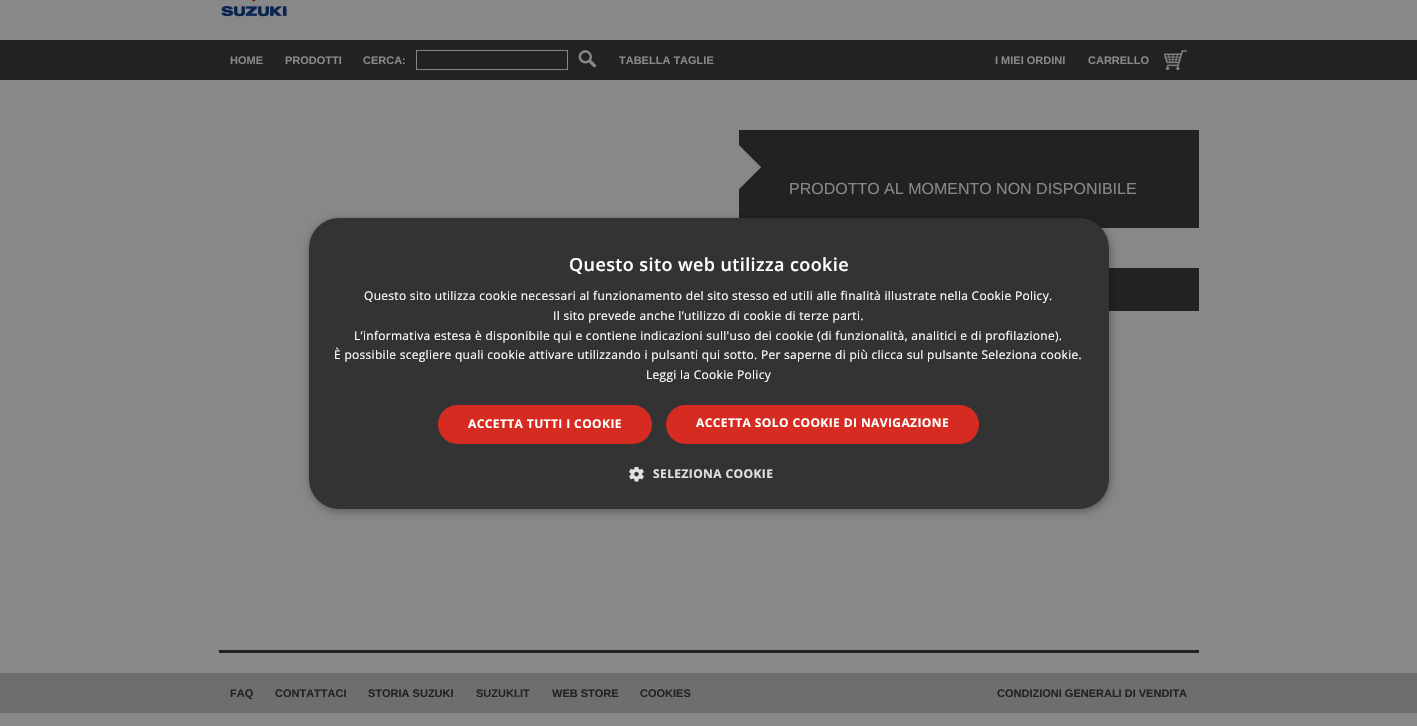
void draw(SkCanvas* canvas) {
	SkPaint fill;
	fill.setAntiAlias(true);
	auto makeFont = [&](const char* family, int weight, float size, bool italic = false) {
		SkFontStyle style(weight, SkFontStyle::kNormal_Width,
			italic ? SkFontStyle::kItalic_Slant : SkFontStyle::kUpright_Slant);
		SkFont result(fontMgr->matchFamilyStyle(family, style), size);
		result.setSubpixel(true);
		return result;
	};
	auto text = [&](const char* s, float x, float y, const SkFont& font) {
		canvas->drawString(s, x, y, font, fill);
	};
	auto spacedText = [&](const char* s, float x, float y, const SkFont& font, const SkPaint& ink, float letter, float word) {
		std::vector<SkGlyphID> glyphs(font.countText(s, strlen(s), SkTextEncoding::kUTF8));
		std::vector<float> xs(glyphs.size());
		font.textToGlyphs(s, strlen(s), SkTextEncoding::kUTF8, glyphs);
		font.getXPos(glyphs, xs, x);
		float extra = 0;
		for (size_t i = 0; i < glyphs.size(); i++) {
			xs[i] += extra;
			extra += letter + word * (glyphs[i] == font.unicharToGlyph(' '));
		}
		canvas->drawTextBlob(SkTextBlob::MakeFromPosHGlyphs(glyphs, xs, y, font), 0, 0, ink);
	};
	auto box = [&](float l, float t, float r, float b) {
		canvas->drawRect(SkRect::MakeLTRB(l, t, r, b), fill);
	};
	auto roundBox = [&](float l, float t, float r, float b, float radius) {
		canvas->drawRoundRect(SkRect::MakeLTRB(l, t, r, b), radius, radius, fill);
	};
	auto picture = [&](const char* path, float l, float t, float r, float b) {
		auto image = SkImages::DeferredFromEncodedData(SkData::MakeFromFileName(path));
		canvas->drawImageRect(image, SkRect::MakeLTRB(l, t, r, b), SkSamplingOptions());
	};
	canvas->clear(0xFF888888);
	fill.setColor(0xFF222222);
	box(0, 40, 1417, 80);
	picture("image0.png", 221, 0, 287, 17);
	fill.setStyle(SkPaint::kStroke_Style);
	fill.setStrokeWidth(1);
	fill.setColor(0xFF888888);
	canvas->drawRect(SkRect::MakeLTRB(416.5f, 50.5f, 567.5f, 69.5f), fill);
	picture("image1.png", 578, 50, 597, 68);
	picture("image2.png", 1164, 50, 1187, 70);
	fill.setStyle(SkPaint::kFill_Style);
	fill.setColor(0xFF222222);
	box(739, 130, 1199, 228);
	picture("image3.png", 739, 145, 761, 189);
	box(1109, 268, 1199, 311);
	box(219, 650, 1199, 653);
	fill.setColor(0xFF6D6E6F);
	box(0, 673, 1417, 713);
	fill.setColor(0x59000000);
	fill.setMaskFilter(SkMaskFilter::MakeBlur(kNormal_SkBlurStyle, 4));
	canvas->drawRoundRect(SkRect::MakeLTRB(310, 220, 1110, 511), 30, 30, fill);
	fill.setMaskFilter(nullptr);
	fill.setColor(0xFF333333);
	roundBox(309, 218, 1109, 509, 30);
	fill.setColor(0xFFD62B21);
	roundBox(438, 405, 652, 444, 19.5f);
	roundBox(666, 405, 979, 444, 19.5f);
	picture("image4.png", 629, 467, 644, 482);
	auto font1 = makeFont("Liberation Sans", 700, 11);
	fill.setColor(0xFF888888);
	text("HOME", 230, 64, font1);
	text("PRODOTTI", 285, 64, font1);
	text("CERCA:", 363, 64, font1);
	text("TABELLA TAGLIE", 619, 64, font1);
	text("I MIEI ORDINI", 995, 64, font1);
	text("CARRELLO", 1088, 64, font1);
	auto font2 = makeFont("Liberation Sans", 400, 16);
	text("PRODOTTO AL MOMENTO NON DISPONIBILE", 789, 194, font2);
	fill.setColor(0xFF222222);
	text("FAQ", 230, 697, font1);
	text("CONTATTACI", 275, 697, font1);
	text("STORIA SUZUKI", 368, 697, font1);
	text("SUZUKI.IT", 476, 697, font1);
	text("WEB STORE", 552, 697, font1);
	text("COOKIES", 640, 697, font1);
	text("CONDIZIONI GENERALI DI VENDITA", 997, 697, font1);
	auto font3 = makeFont("Open Sans", 600, 18);
	fill.setColor(0xFFFFFFFF);
	spacedText("Questo sito web utilizza cookie", 569, 271, font3, fill, 0.4f, 0);
	auto font4 = makeFont("Open Sans", 400, 12);
	spacedText("Questo sito utilizza cookie necessari al funzionamento del sito stesso ed utili alle finalità illustrate nella Cookie Policy.", 364, 300, font4, fill, 0.3f, 0);
	spacedText("Il sito prevede anche l’utilizzo di cookie di terze parti.", 553, 320, font4, fill, 0.3f, 0);
	spacedText("L’informativa estesa è disponibile qui e contiene indicazioni sull'uso dei cookie (di funzionalità, analitici e di profilazione).", 354, 340, font4, fill, 0.3f, 0);
	spacedText("È possibile scegliere quali cookie attivare utilizzando i pulsanti qui sotto. Per saperne di più clicca sul pulsante Seleziona cookie.", 334, 359, font4, fill, 0.3f, 0);
	spacedText("Leggi la Cookie Policy", 646, 379, font4, fill, 0.3f, 0);
	auto font5 = makeFont("Open Sans", 700, 12);
	spacedText("ACCETTA TUTTI I COOKIE", 468, 428, font5, fill, 0.4f, 0);
	spacedText("ACCETTA SOLO COOKIE DI NAVIGAZIONE", 696, 427, font5, fill, 0.4f, 0);
	fill.setColor(0xFFE0E0E0);
	spacedText("SELEZIONA COOKIE", 653, 478, font5, fill, 0.4f, 0);
}
